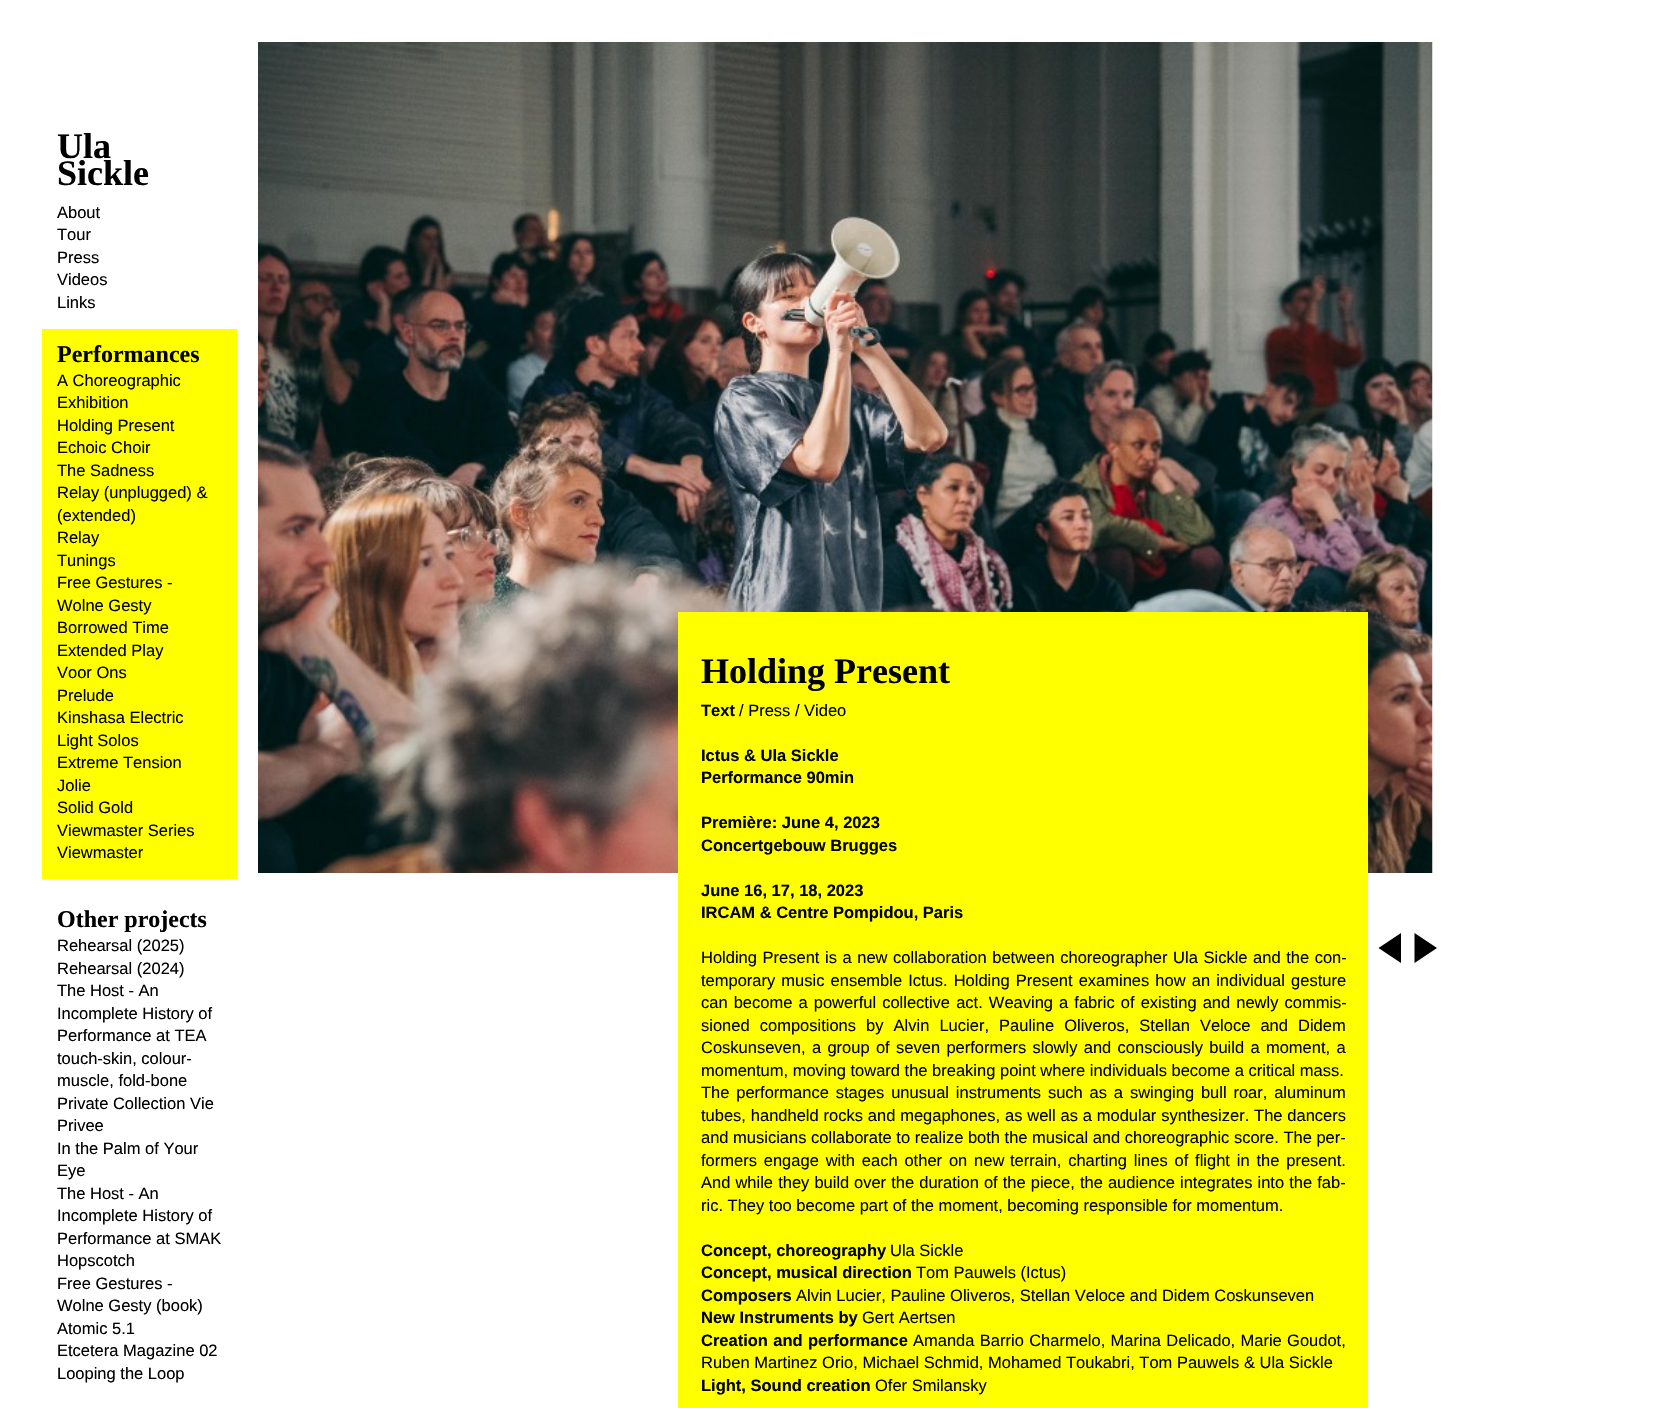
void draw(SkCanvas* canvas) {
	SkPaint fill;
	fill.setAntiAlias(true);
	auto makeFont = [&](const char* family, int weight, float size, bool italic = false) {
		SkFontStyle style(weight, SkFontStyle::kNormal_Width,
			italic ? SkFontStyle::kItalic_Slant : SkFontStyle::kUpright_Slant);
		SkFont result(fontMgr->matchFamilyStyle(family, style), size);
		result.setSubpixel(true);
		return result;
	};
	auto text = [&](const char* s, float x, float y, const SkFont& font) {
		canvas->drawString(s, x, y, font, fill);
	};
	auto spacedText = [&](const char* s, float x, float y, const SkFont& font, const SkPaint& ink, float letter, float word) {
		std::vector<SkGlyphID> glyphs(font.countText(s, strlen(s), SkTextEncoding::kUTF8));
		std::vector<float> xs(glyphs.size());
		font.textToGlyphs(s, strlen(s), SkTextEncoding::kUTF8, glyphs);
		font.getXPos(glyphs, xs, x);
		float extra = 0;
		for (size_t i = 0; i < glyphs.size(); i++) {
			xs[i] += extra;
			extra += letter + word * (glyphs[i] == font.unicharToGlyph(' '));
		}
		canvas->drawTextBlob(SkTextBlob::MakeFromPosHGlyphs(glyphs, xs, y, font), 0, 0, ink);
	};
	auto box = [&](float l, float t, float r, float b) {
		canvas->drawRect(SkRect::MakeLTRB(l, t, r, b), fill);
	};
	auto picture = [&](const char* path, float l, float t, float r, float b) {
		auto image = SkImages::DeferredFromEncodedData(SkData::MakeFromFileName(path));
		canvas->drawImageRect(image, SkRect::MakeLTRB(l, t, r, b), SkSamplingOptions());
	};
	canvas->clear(0xFFFFFFFF);
	fill.setColor(0xFFFFFF00);
	box(42, 329, 237, 879);
	picture("image0.png", 258, 42, 1433, 873);
	fill.setColor(0xFF000000);
	canvas->drawPath(SkPathBuilder().moveTo(1401, 933).lineTo(1401, 963).lineTo(1378.5f, 948).close().moveTo(1414.5f, 963).lineTo(1414.5f, 933).lineTo(1437, 948).close().detach(), fill);
	fill.setColor(0xFFFFFF00);
	box(678, 612, 1368, 1408);
	auto font1 = makeFont("Liberation Serif", 700, 36);
	fill.setColor(0xFF000000);
	text("Ula", 57, 158, font1);
	text("Sickle", 57, 185, font1);
	auto font2 = makeFont("Liberation Sans", 400, 16.5f);
	text("About", 57, 218, font2);
	text("Tour", 57, 240, font2);
	text("Press", 57, 263, font2);
	text("Videos", 57, 285, font2);
	text("Links", 57, 308, font2);
	auto font3 = makeFont("Liberation Serif", 700, 24);
	text("Performances", 57, 362, font3);
	text("A Choreographic", 57, 386, font2);
	text("Exhibition", 57, 408, font2);
	text("Holding Present", 57, 431, font2);
	text("Echoic Choir", 57, 453, font2);
	text("The Sadness", 57, 476, font2);
	text("Relay (unplugged) &", 57, 498, font2);
	text("(extended)", 57, 521, font2);
	text("Relay", 57, 543, font2);
	text("Tunings", 57, 566, font2);
	text("Free Gestures -", 57, 588, font2);
	text("Wolne Gesty", 57, 611, font2);
	text("Borrowed Time", 57, 633, font2);
	text("Extended Play", 57, 656, font2);
	text("Voor Ons", 57, 678, font2);
	text("Prelude", 57, 701, font2);
	text("Kinshasa Electric", 57, 723, font2);
	text("Light Solos", 57, 746, font2);
	text("Extreme Tension", 57, 768, font2);
	text("Jolie", 57, 791, font2);
	text("Solid Gold", 57, 813, font2);
	text("Viewmaster Series", 57, 836, font2);
	text("Viewmaster", 57, 858, font2);
	text("Other projects", 57, 927, font3);
	text("Rehearsal (2025)", 57, 951, font2);
	text("Rehearsal (2024)", 57, 974, font2);
	text("The Host - An", 57, 996, font2);
	text("Incomplete History of", 57, 1019, font2);
	text("Performance at TEA", 57, 1041, font2);
	text("touch-skin, colour-", 57, 1064, font2);
	text("muscle, fold-bone", 57, 1086, font2);
	text("Private Collection Vie", 57, 1109, font2);
	text("Privee", 57, 1131, font2);
	text("In the Palm of Your", 57, 1154, font2);
	text("Eye", 57, 1176, font2);
	text("The Host - An", 57, 1199, font2);
	text("Incomplete History of", 57, 1221, font2);
	text("Performance at SMAK", 57, 1244, font2);
	text("Hopscotch", 57, 1266, font2);
	text("Free Gestures -", 57, 1289, font2);
	text("Wolne Gesty (book)", 57, 1311, font2);
	text("Atomic 5.1", 57, 1334, font2);
	text("Etcetera Magazine 02", 57, 1356, font2);
	text("Looping the Loop", 57, 1379, font2);
	text("Holding Present", 701, 683, font1);
	auto font4 = makeFont("Liberation Sans", 700, 16.5f);
	text("Text", 701, 716, font4);
	text("/ Press / Video", 739, 716, font2);
	text("Ictus & Ula Sickle", 701, 761, font4);
	text("Performance 90min", 701, 783, font4);
	text("Première: June 4, 2023", 701, 828, font4);
	text("Concertgebouw Brugges", 701, 851, font4);
	text("June 16, 17, 18, 2023", 701, 896, font4);
	text("IRCAM & Centre Pompidou, Paris", 701, 918, font4);
	spacedText("Holding Present is a new collaboration between choreographer Ula Sickle and the con-", 701, 963, font2, fill, 0, 1);
	spacedText("temporary music ensemble Ictus. Holding Present examines how an individual gesture", 701, 986, font2, fill, 0, 1.5f);
	spacedText("can become a powerful collective act. Weaving a fabric of existing and newly commis-", 701, 1008, font2, fill, 0, 1.5f);
	spacedText("sioned compositions by Alvin Lucier, Pauline Oliveros, Stellan Veloce and Didem", 701, 1031, font2, fill, 0, 5.5f);
	spacedText("Coskunseven, a group of seven performers slowly and consciously build a moment, a", 701, 1053, font2, fill, 0, 1.75f);
	text("momentum, moving toward the breaking point where individuals become a critical mass.", 701, 1076, font2);
	spacedText("The performance stages unusual instruments such as a swinging bull roar, aluminum", 701, 1098, font2, fill, 0, 2.25f);
	spacedText("tubes, handheld rocks and megaphones, as well as a modular synthesizer. The dancers", 701, 1121, font2, fill, 0, 0.25f);
	text("and musicians collaborate to realize both the musical and choreographic score. The per-", 701, 1143, font2);
	spacedText("formers engage with each other on new", 701, 1166, font2, fill, 0, 2.25f);
	spacedText("terrain, charting lines of flight in the present.", 1010, 1166, font2, fill, 0, 2.25f);
	spacedText("And while they build", 701, 1188, font2, fill, 0, 0.5f);
	spacedText("over the duration of the piece, the audience integrates into the fab-", 854, 1188, font2, fill, 0, 0.5f);
	text("ric. They too become part of the moment, becoming responsible for momentum.", 701, 1211, font2);
	text("Concept, choreography", 701, 1256, font4);
	text("Ula Sickle", 890, 1256, font2);
	text("Concept, musical direction", 701, 1278, font4);
	text("Tom Pauwels (Ictus)", 916, 1278, font2);
	text("Composers", 701, 1301, font4);
	text("Alvin Lucier, Pauline Oliveros, Stellan Veloce and Didem Coskunseven", 796, 1301, font2);
	text("New Instruments by", 701, 1323, font4);
	text("Gert Aertsen", 862, 1323, font2);
	spacedText("Creation and performance", 701, 1346, font4, fill, 0, 0.75f);
	spacedText("Amanda Barrio Charmelo, Marina Delicado, Marie Goudot,", 913, 1346, font2, fill, 0, 0.75f);
	text("Ruben Martinez Orio, Michael Schmid, Mohamed Toukabri, Tom Pauwels & Ula Sickle", 701, 1368, font2);
	text("Light, Sound creation", 701, 1391, font4);
	text("Ofer Smilansky", 875, 1391, font2);
}
